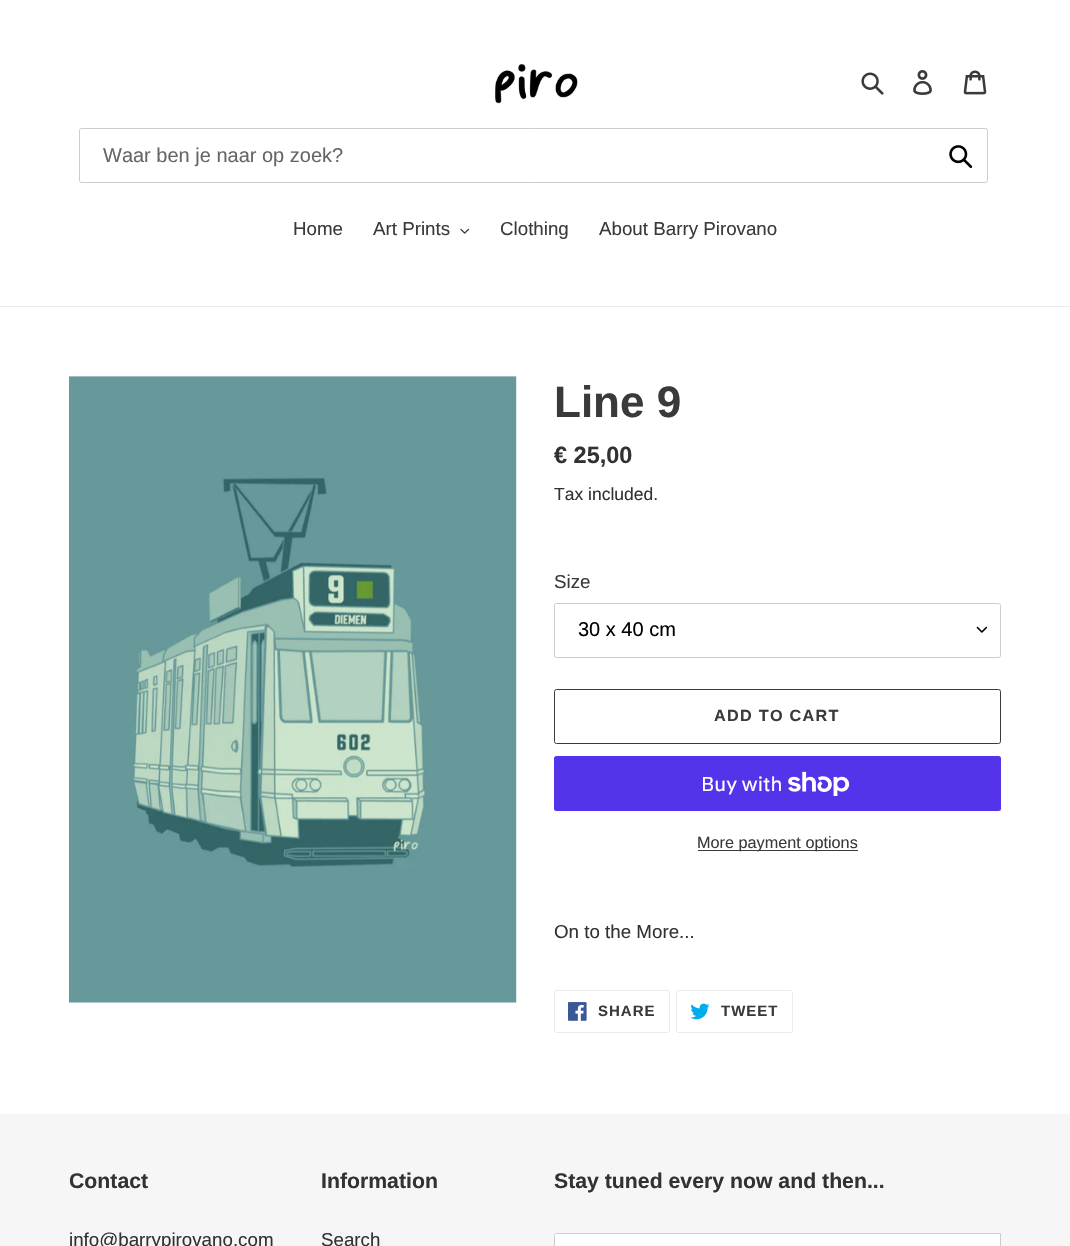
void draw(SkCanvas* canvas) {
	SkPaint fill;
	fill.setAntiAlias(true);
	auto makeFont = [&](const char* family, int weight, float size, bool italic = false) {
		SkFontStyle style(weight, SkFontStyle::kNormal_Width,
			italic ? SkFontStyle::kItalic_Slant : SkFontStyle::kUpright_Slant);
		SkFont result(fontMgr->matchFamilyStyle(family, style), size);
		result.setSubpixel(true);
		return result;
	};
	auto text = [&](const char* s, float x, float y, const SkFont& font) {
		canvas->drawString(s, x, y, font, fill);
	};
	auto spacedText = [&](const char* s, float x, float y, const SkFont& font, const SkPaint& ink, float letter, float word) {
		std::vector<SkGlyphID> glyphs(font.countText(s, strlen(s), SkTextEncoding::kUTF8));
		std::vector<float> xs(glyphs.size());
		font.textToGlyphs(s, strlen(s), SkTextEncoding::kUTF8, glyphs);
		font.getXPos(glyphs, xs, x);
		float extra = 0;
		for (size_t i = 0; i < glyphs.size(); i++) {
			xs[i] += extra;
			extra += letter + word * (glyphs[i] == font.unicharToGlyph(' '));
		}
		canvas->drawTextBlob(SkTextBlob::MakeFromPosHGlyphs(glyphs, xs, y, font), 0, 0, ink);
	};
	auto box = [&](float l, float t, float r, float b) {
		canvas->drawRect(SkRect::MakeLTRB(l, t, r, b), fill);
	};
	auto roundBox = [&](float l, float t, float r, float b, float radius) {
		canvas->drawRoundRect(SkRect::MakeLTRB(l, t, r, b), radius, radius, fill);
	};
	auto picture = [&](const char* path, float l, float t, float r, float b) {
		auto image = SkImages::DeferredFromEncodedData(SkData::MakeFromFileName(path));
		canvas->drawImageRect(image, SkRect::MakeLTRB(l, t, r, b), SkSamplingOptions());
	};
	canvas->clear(0xFFFFFFFF);
	picture("image0.png", 495, 64, 578, 104);
	picture("image1.png", 861, 72, 884, 95);
	picture("image2.png", 913, 70, 932, 95);
	picture("image3.png", 963, 70, 987, 95);
	fill.setStyle(SkPaint::kStroke_Style);
	fill.setStrokeWidth(1);
	fill.setColor(0xFFCCCCCC);
	canvas->drawRoundRect(SkRect::MakeLTRB(79.5f, 128.5f, 987.5f, 182.5f), 2, 2, fill);
	picture("image4.png", 949, 145, 973, 168);
	fill.setStyle(SkPaint::kFill_Style);
	fill.setColor(0xFFEBEBEB);
	box(0, 306, 1070, 307);
	picture("image5.png", 460, 228, 469, 234);
	picture("image6.png", 69, 375, 517, 1003);
	picture("image7.png", 976, 626, 988, 633);
	fill.setStyle(SkPaint::kStroke_Style);
	fill.setColor(0xFFCCCCCC);
	canvas->drawRoundRect(SkRect::MakeLTRB(554.5f, 603.5f, 1000.5f, 657.5f), 2, 2, fill);
	fill.setColor(0xFF3A3A3A);
	canvas->drawRoundRect(SkRect::MakeLTRB(554.5f, 689.5f, 1000.5f, 743.5f), 2, 2, fill);
	fill.setStyle(SkPaint::kFill_Style);
	fill.setColor(0xFF5433EB);
	roundBox(554, 756, 1001, 811, 2.5f);
	picture("image8.png", 788, 771, 850, 796);
	fill.setColor(0xFF3A3A3A);
	box(698, 850, 858, 851);
	fill.setStyle(SkPaint::kStroke_Style);
	fill.setColor(0xFFEBEBEB);
	canvas->drawRoundRect(SkRect::MakeLTRB(554.5f, 990.5f, 669.5f, 1032.5f), 2, 2, fill);
	picture("image9.png", 568, 1002, 587, 1021);
	canvas->drawRoundRect(SkRect::MakeLTRB(676.5f, 990.5f, 792.5f, 1032.5f), 2, 2, fill);
	picture("image10.png", 690, 1003, 710, 1020);
	fill.setStyle(SkPaint::kFill_Style);
	fill.setColor(0xFFF6F6F6);
	box(0, 1114, 1070, 1246);
	fill.setColor(0xFFFFFFFF);
	canvas->drawPath(SkPathBuilder().moveTo(556.5f, 1233.5f).lineTo(1000.5f, 1233.5f).lineTo(1000.5f, 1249.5f).lineTo(556.5f, 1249.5f).cubicTo(555.5f, 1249.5f, 554.5f, 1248.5f, 554.5f, 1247.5f).lineTo(554.5f, 1235.5f).cubicTo(554.5f, 1234.5f, 555.5f, 1233.5f, 556.5f, 1233.5f).close().detach(), fill);
	fill.setStyle(SkPaint::kStroke_Style);
	fill.setColor(0xFFCCCCCC);
	canvas->drawPath(SkPathBuilder().moveTo(556.5f, 1233.5f).lineTo(1000.5f, 1233.5f).lineTo(1000.5f, 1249.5f).lineTo(556.5f, 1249.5f).cubicTo(555.5f, 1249.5f, 554.5f, 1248.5f, 554.5f, 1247.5f).lineTo(554.5f, 1235.5f).cubicTo(554.5f, 1234.5f, 555.5f, 1233.5f, 556.5f, 1233.5f).close().detach(), fill);
	auto font1 = makeFont("Liberation Sans", 400, 20);
	fill.setStyle(SkPaint::kFill_Style);
	fill.setColor(0xFF666666);
	text("Waar ben je naar op zoek?", 103, 162, font1);
	auto font2 = makeFont("Liberation Sans", 400, 18.75f);
	fill.setColor(0xFF3A3A3A);
	text("Home", 293, 235, font2);
	text("Art Prints", 373, 235, font2);
	text("Clothing", 500, 235, font2);
	text("About Barry Pirovano", 599, 235, font2);
	auto font3 = makeFont("Liberation Sans", 700, 44);
	text("Line 9", 554, 417, font3);
	auto font4 = makeFont("Liberation Sans", 700, 23.5f);
	fill.setColor(0xFF333232);
	text("€ 25,00", 554, 463, font4);
	auto font5 = makeFont("Liberation Sans", 400, 17.5f);
	text("Tax included.", 554, 500, font5);
	fill.setColor(0xFF3A3A3A);
	text("Size", 554, 588, font2);
	fill.setColor(0xFF000000);
	text("30 x 40 cm", 578, 636, font1);
	auto font6 = makeFont("Liberation Sans", 700, 16.25f);
	fill.setColor(0xFF3A3A3A);
	spacedText("ADD TO CART", 714, 721, font6, fill, 1.25f, 0);
	auto font7 = makeFont("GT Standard", 400, 20);
	fill.setColor(0xFFFFFFFF);
	text("Buy with", 701, 791, font7);
	auto font8 = makeFont("Liberation Sans", 400, 16.25f);
	fill.setColor(0xFF3A3A3A);
	text("More payment options", 697, 848, font8);
	fill.setColor(0xFF333232);
	text("On to the More...", 554, 938, font2);
	auto font9 = makeFont("Liberation Sans", 700, 15);
	fill.setColor(0xFF3A3A3A);
	spacedText("SHARE", 598, 1016, font9, fill, 1, 0);
	spacedText("TWEET", 721, 1016, font9, fill, 1, 0);
	auto font10 = makeFont("Liberation Sans", 700, 21.25f);
	fill.setColor(0xFF333232);
	text("Contact", 69, 1188, font10);
	text("info@barrypirovano.com", 69, 1246, font2);
	text("Information", 321, 1188, font10);
	text("Search", 321, 1246, font2);
	text("Stay tuned every now and then...", 554, 1188, font10);
}
